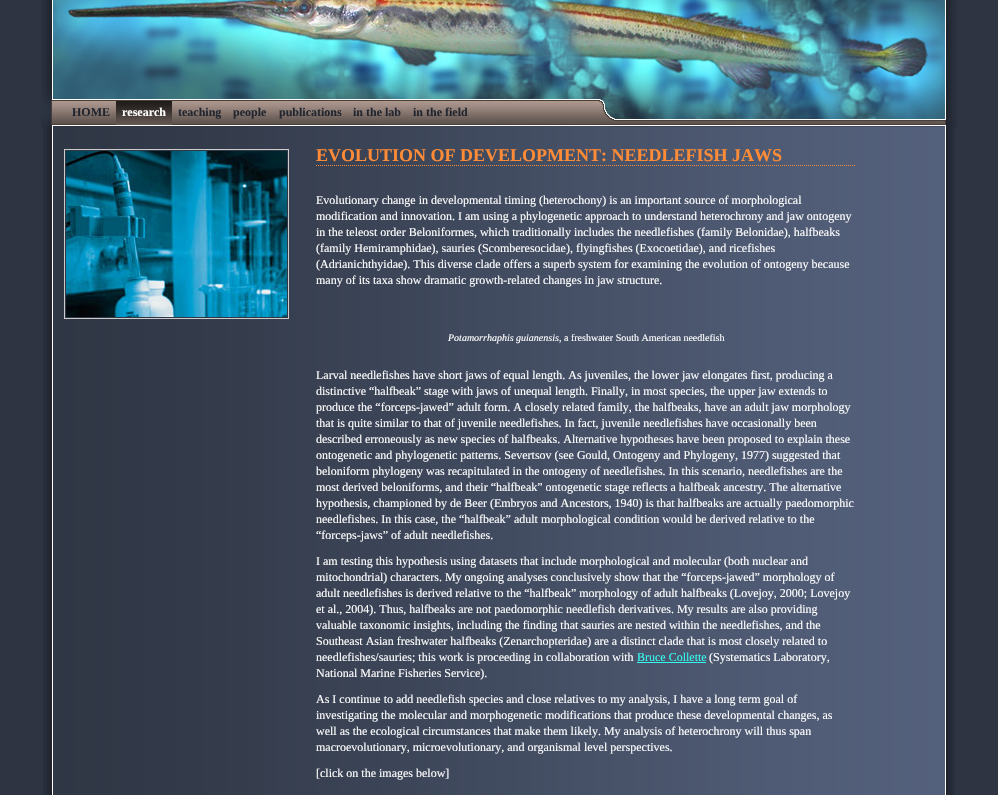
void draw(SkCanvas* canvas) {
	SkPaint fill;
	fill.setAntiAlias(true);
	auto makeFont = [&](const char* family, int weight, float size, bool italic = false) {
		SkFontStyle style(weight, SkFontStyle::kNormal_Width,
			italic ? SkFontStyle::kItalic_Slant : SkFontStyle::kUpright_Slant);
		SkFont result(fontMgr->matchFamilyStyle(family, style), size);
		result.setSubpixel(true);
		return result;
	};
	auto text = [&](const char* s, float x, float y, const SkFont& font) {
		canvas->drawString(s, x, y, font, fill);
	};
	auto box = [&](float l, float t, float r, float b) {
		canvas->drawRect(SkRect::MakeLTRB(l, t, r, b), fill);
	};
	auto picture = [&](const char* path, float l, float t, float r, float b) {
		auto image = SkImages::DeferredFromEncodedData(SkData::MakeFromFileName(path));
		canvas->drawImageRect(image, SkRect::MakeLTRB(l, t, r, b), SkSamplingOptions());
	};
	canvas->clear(0xFFFFFFFF);
	picture("image0.png", 0, 0, 998, 795);
	picture("image1.png", 41, 0, 957, 127);
	picture("image2.png", 116, 101, 172, 125);
	picture("image3.png", 43, 127, 955, 795);
	fill.setColor(0xFF2F3644);
	box(119, 150, 288, 318);
	fill.setStyle(SkPaint::kStroke_Style);
	fill.setStrokeWidth(1);
	fill.setColor(0xFFCCCCCC);
	canvas->drawRect(SkRect::MakeLTRB(64.5f, 149.5f, 288.5f, 318.5f), fill);
	picture("image4.png", 66, 151, 287, 317);
	fill.setColor(0xFFFF8B36);
	fill.setPathEffect(SkDashPathEffect::Make({{1, 1}}, 0));
	canvas->drawPath(SkPathBuilder().moveTo(316, 165.5f).lineTo(856, 165.5f).detach(), fill);
	fill.setPathEffect(nullptr);
	fill.setStyle(SkPaint::kFill_Style);
	fill.setColor(0xFF35FCF0);
	box(637, 662, 706, 663);
	auto font1 = makeFont("Liberation Serif", 700, 12);
	fill.setColor(0xFF20252F);
	text("HOME", 72, 116, font1);
	fill.setColor(0xFFFFFFFF);
	text("research", 122, 116, font1);
	fill.setColor(0xFF20252F);
	text("teaching", 178, 116, font1);
	text("people", 233, 116, font1);
	text("publications", 279, 116, font1);
	text("in the lab", 353, 116, font1);
	text("in the field", 413, 116, font1);
	auto font2 = makeFont("Liberation Serif", 700, 18);
	fill.setColor(0xFFFF8B36);
	text("EVOLUTION OF DEVELOPMENT: NEEDLEFISH JAWS", 316, 161, font2);
	auto font3 = makeFont("Liberation Serif", 400, 12);
	fill.setColor(0xFFFFFFFF);
	text("Evolutionary change in developmental timing (heterochony) is an important source of morphological", 316, 204, font3);
	text("modification and innovation. I am using a phylogenetic approach to understand heterochrony and jaw ontogeny", 316, 220, font3);
	text("in the teleost order Beloniformes, which traditionally includes the needlefishes (family Belonidae), halfbeaks", 316, 236, font3);
	text("(family Hemiramphidae), sauries (Scomberesocidae), flyingfishes (Exocoetidae), and ricefishes", 316, 252, font3);
	text("(Adrianichthyidae). This diverse clade offers a superb system for examining the evolution of ontogeny because", 316, 268, font3);
	text("many of its taxa show dramatic growth-related changes in jaw structure.", 316, 284, font3);
	auto font4 = makeFont("Liberation Serif", 400, 10, true);
	text("Potamorrhaphis guianensis", 448, 341, font4);
	auto font5 = makeFont("Liberation Serif", 400, 10);
	text(", a freshwater South American needlefish", 559, 341, font5);
	text("Larval needlefishes have short jaws of equal length. As juveniles, the lower jaw elongates first, producing a", 316, 379, font3);
	text("distinctive “halfbeak” stage with jaws of unequal length. Finally, in most species, the upper jaw extends to", 316, 395, font3);
	text("produce the “forceps-jawed” adult form. A closely related family, the halfbeaks, have an adult jaw morphology", 316, 411, font3);
	text("that is quite similar to that of juvenile needlefishes. In fact, juvenile needlefishes have occasionally been", 316, 427, font3);
	text("described erroneously as new species of halfbeaks. Alternative hypotheses have been proposed to explain these", 316, 443, font3);
	text("ontogenetic and phylogenetic patterns. Severtsov (see Gould, Ontogeny and Phylogeny, 1977) suggested that", 316, 459, font3);
	text("beloniform phylogeny was recapitulated in the ontogeny of needlefishes. In this scenario, needlefishes are the", 316, 475, font3);
	text("most derived beloniforms, and their “halfbeak” ontogenetic stage reflects a halfbeak ancestry. The alternative", 316, 491, font3);
	text("hypothesis, championed by de Beer (Embryos and Ancestors, 1940) is that halfbeaks are actually paedomorphic", 316, 507, font3);
	text("needlefishes. In this case, the “halfbeak” adult morphological condition would be derived relative to the", 316, 523, font3);
	text("“forceps-jaws” of adult needlefishes.", 316, 539, font3);
	text("I am testing this hypothesis using datasets that include morphological and molecular (both nuclear and", 316, 565, font3);
	text("mitochondrial) characters. My ongoing analyses conclusively show that the “forceps-jawed” morphology of", 316, 581, font3);
	text("adult needlefishes is derived relative to the “halfbeak” morphology of adult halfbeaks (Lovejoy, 2000; Lovejoy", 316, 597, font3);
	text("et al., 2004). Thus, halfbeaks are not paedomorphic needlefish derivatives. My results are also providing", 316, 613, font3);
	text("valuable taxonomic insights, including the finding that sauries are nested within the needlefishes, and the", 316, 629, font3);
	text("Southeast Asian freshwater halfbeaks (Zenarchopteridae) are a distinct clade that is most closely related to", 316, 645, font3);
	text("needlefishes/sauries; this work is proceeding in collaboration with", 316, 661, font3);
	fill.setColor(0xFF35FCF0);
	text("Bruce Collette", 637, 661, font3);
	fill.setColor(0xFFFFFFFF);
	text("(Systematics Laboratory,", 709, 661, font3);
	text("National Marine Fisheries Service).", 316, 677, font3);
	text("As I continue to add needlefish species and close relatives to my analysis, I have a long term goal of", 316, 703, font3);
	text("investigating the molecular and morphogenetic modifications that produce these developmental changes, as", 316, 719, font3);
	text("well as the ecological circumstances that make them likely. My analysis of heterochrony will thus span", 316, 735, font3);
	text("macroevolutionary, microevolutionary, and organismal level perspectives.", 316, 751, font3);
	text("[click on the images below]", 316, 777, font3);
}
